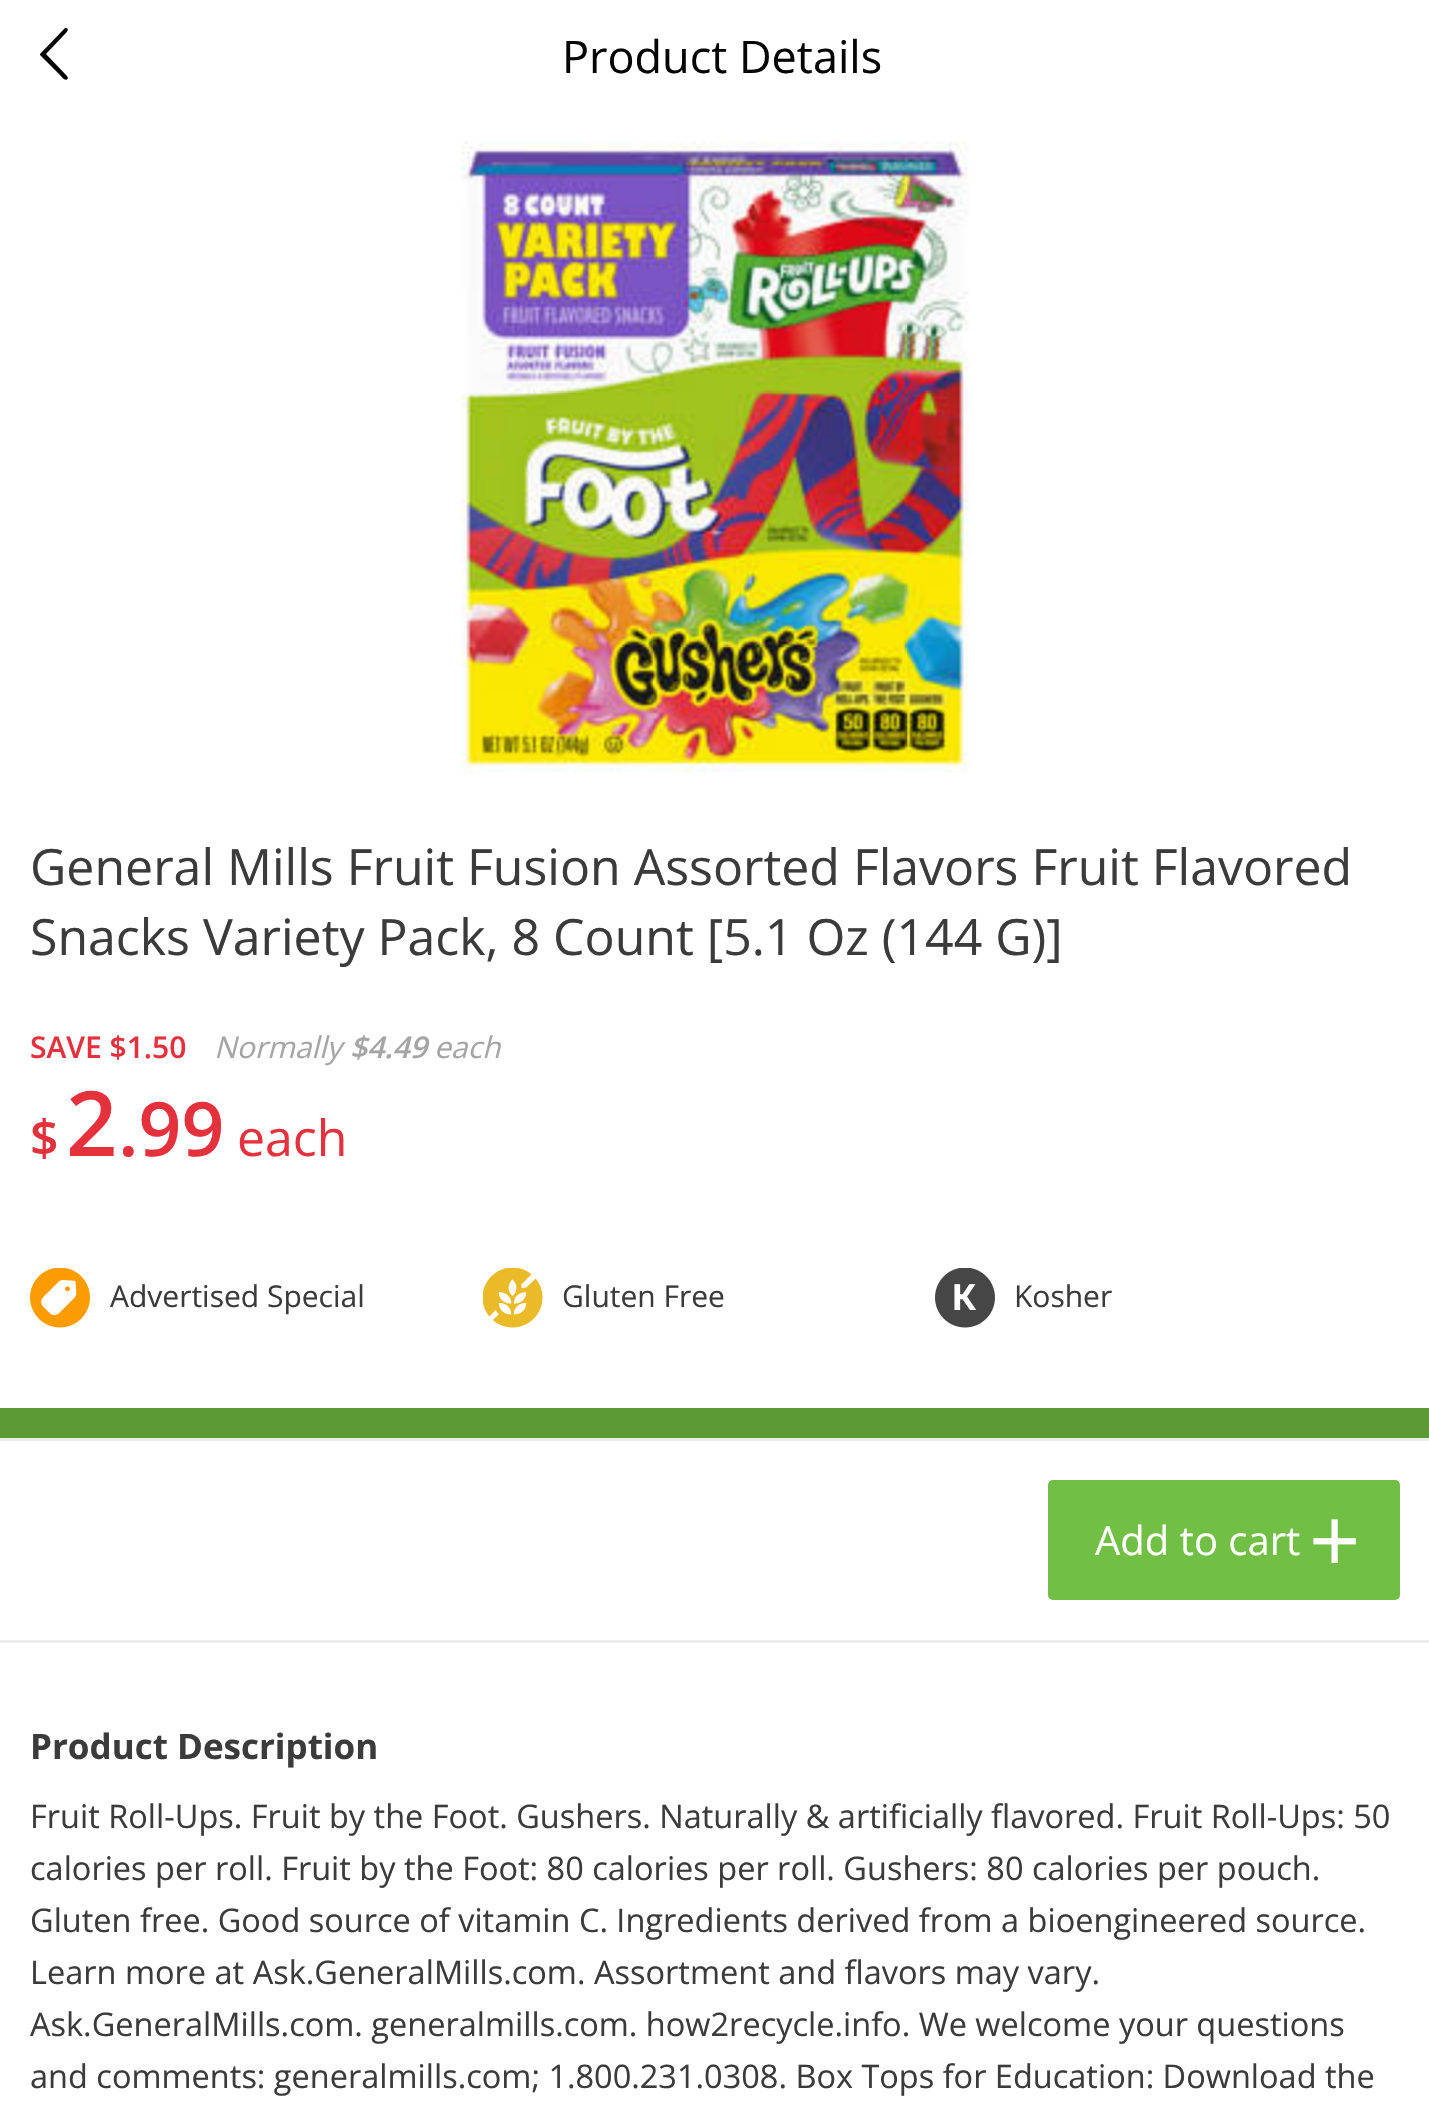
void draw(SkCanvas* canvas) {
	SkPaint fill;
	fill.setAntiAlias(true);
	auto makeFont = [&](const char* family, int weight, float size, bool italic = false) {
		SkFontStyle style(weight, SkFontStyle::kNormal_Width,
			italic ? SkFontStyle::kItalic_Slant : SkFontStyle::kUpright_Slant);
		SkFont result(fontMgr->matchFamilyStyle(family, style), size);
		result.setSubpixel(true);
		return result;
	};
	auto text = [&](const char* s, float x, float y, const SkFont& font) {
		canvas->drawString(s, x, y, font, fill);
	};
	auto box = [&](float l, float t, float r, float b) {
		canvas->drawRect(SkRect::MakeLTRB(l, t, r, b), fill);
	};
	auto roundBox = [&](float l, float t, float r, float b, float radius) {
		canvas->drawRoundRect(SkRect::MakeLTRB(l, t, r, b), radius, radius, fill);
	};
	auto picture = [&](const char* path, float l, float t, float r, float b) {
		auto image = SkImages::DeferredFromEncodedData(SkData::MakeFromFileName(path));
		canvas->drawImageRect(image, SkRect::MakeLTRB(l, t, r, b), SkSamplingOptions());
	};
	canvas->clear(0xFFFFFFFF);
	fill.setColor(0xFF060505);
	canvas->drawPath(SkPathBuilder().moveTo(67, 76).lineTo(68, 78).cubicTo(66, 83, 61, 76, 60, 75).lineTo(40, 55).lineTo(40, 54).lineTo(65, 28).lineTo(66, 28).cubicTo(71, 29, 64, 35, 64, 35).lineTo(46, 54).close().detach(), fill);
	picture("image0.png", 460, 141, 969, 773);
	picture("image1.png", 30, 1268, 90, 1328);
	picture("image2.png", 483, 1268, 543, 1328);
	picture("image3.png", 935, 1268, 995, 1328);
	fill.setColor(0xFF5A9B35);
	box(0, 1408, 1429, 1438);
	fill.setColor(0xFFEDEDED);
	box(0, 1438, 1429, 1441);
	fill.setColor(0xFF71BF44);
	roundBox(1048, 1480, 1400, 1600, 5);
	fill.setColor(0xFFEDEDED);
	box(0, 1640, 1429, 1643);
	auto font1 = makeFont("Open Sans", 400, 45);
	fill.setColor(0xFF060505);
	text("Product Details", 562, 73, font1);
	auto font2 = makeFont("Open Sans", 400, 50);
	fill.setColor(0xFF3C3B3B);
	text("General Mills Fruit Fusion Assorted Flavors Fruit Flavored", 30, 885, font2);
	text("Snacks Variety Pack, 8 Count [5.1 Oz (144 G)]", 30, 955, font2);
	auto font3 = makeFont("Open Sans", 600, 30);
	fill.setColor(0xFFE4313C);
	text("SAVE $1.50", 30, 1058, font3);
	auto font4 = makeFont("Open Sans", 400, 30, true);
	fill.setColor(0xFFA5A5A5);
	text("Normally", 214, 1058, font4);
	auto font5 = makeFont("Open Sans", 600, 30, true);
	text("$4.49", 350, 1058, font5);
	text("each", 434, 1058, font4);
	auto font6 = makeFont("Open Sans", 600, 50);
	fill.setColor(0xFFE4313C);
	text("$", 30, 1156, font6);
	auto font7 = makeFont("Open Sans", 600, 90);
	text("2", 66, 1156, font7);
	auto font8 = makeFont("Open Sans", 600, 75);
	text(".99", 118, 1156, font8);
	text("each", 237, 1156, font2);
	auto font9 = makeFont("Open Sans", 400, 30);
	fill.setColor(0xFF3C3B3B);
	text("Advertised Special", 110, 1307, font9);
	text("Gluten Free", 562, 1307, font9);
	text("Kosher", 1014, 1307, font9);
	auto font10 = makeFont("Open Sans", 400, 40);
	fill.setColor(0xFFFFFFFF);
	text("Add to cart", 1095, 1555, font10);
	auto font11 = makeFont("Open Sans", 400, 90);
	text("+", 1309, 1573, font11);
	auto font12 = makeFont("Open Sans", 700, 35);
	fill.setColor(0xFF3C3B3B);
	text("Product Description", 30, 1759, font12);
	auto font13 = makeFont("Open Sans", 400, 32.5f);
	text("Fruit Roll-Ups. Fruit by the Foot. Gushers. Naturally & artificially flavored. Fruit Roll-Ups: 50", 30, 1828, font13);
	text("calories per roll. Fruit by the Foot: 80 calories per roll. Gushers: 80 calories per pouch.", 30, 1880, font13);
	text("Gluten free. Good source of vitamin C. Ingredients derived from a bioengineered source.", 30, 1932, font13);
	text("Learn more at Ask.GeneralMills.com. Assortment and flavors may vary.", 30, 1984, font13);
	text("Ask.GeneralMills.com. generalmills.com. how2recycle.info. We welcome your questions", 30, 2036, font13);
	text("and comments: generalmills.com; 1.800.231.0308. Box Tops for Education: Download the", 30, 2088, font13);
}
